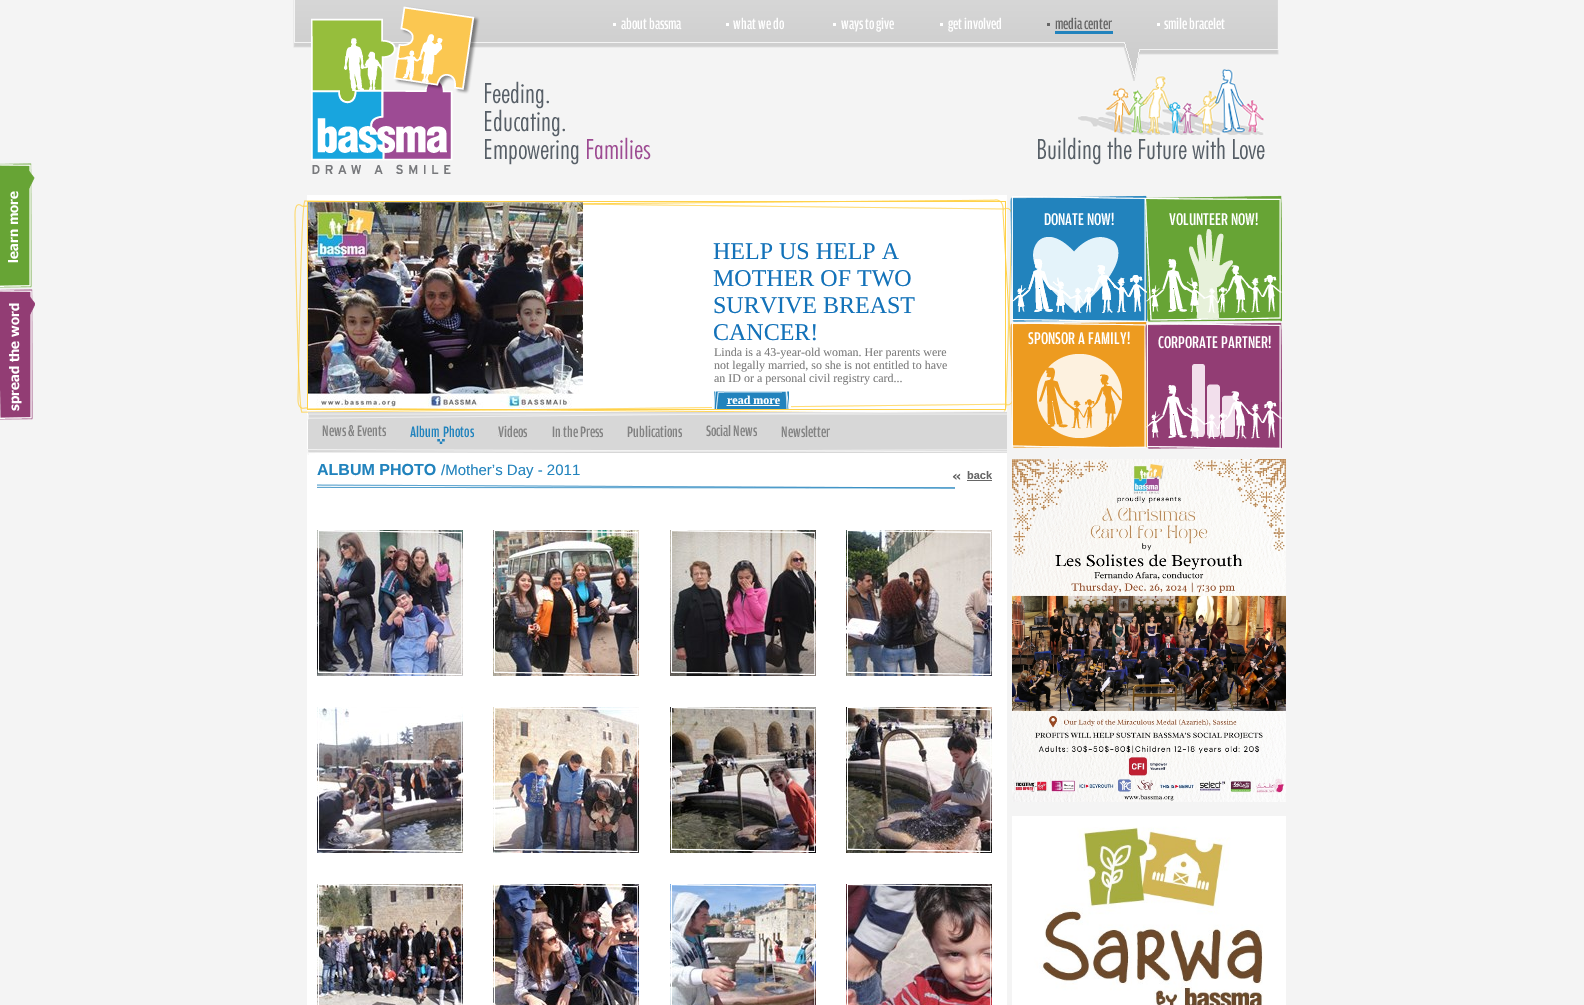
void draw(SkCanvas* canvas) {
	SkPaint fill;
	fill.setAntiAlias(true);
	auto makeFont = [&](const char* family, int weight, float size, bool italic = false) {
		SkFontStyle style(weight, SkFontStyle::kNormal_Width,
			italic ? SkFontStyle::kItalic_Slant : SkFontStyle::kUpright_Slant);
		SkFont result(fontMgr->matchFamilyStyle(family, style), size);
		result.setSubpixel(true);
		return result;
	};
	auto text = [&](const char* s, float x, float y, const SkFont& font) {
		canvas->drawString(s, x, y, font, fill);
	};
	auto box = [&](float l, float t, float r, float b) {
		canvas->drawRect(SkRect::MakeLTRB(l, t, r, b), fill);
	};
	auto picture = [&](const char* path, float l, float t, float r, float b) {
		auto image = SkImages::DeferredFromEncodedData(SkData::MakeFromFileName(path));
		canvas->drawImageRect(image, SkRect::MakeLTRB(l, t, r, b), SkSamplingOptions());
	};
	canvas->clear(0xFFF4F4F4);
	picture("image0.png", 0, 163, 35, 288);
	picture("image1.png", 0, 289, 35, 420);
	picture("image10.png", 1078, 69, 1265, 135);
	picture("image2.png", 293, 0, 1279, 81);
	picture("image3.png", 311, 6, 651, 174);
	picture("image4.png", 613, 17, 682, 30);
	picture("image5.png", 726, 17, 784, 30);
	picture("image6.png", 833, 17, 894, 32);
	picture("image7.png", 940, 17, 1001, 32);
	picture("image8.png", 1047, 17, 1113, 34);
	picture("image9.png", 1157, 17, 1225, 30);
	picture("image11.png", 1038, 137, 1265, 165);
	fill.setColor(0xFFFFFFFF);
	box(307, 195, 1007, 1005);
	fill.setStyle(SkPaint::kStroke_Style);
	fill.setStrokeWidth(1);
	fill.setColor(0xFFFFD148);
	canvas->drawRect(SkRect::MakeLTRB(307.5f, 201.5f, 1005.5f, 409.5f), fill);
	picture("image12.png", 294, 199, 1012, 413);
	picture("image13.png", 308, 202, 583, 408);
	picture("image14.png", 712, 391, 724, 409);
	picture("image15.png", 724, 391, 782, 409);
	picture("image16.png", 782, 391, 791, 409);
	picture("image17.png", 307, 410, 1007, 455);
	picture("image18.png", 322, 425, 386, 437);
	picture("image19.png", 410, 425, 474, 444);
	picture("image20.png", 498, 425, 527, 438);
	picture("image21.png", 552, 425, 603, 438);
	picture("image22.png", 627, 425, 682, 438);
	picture("image23.png", 706, 425, 757, 437);
	picture("image24.png", 781, 425, 830, 438);
	picture("image25.png", 952, 473, 961, 480);
	fill.setStyle(SkPaint::kFill_Style);
	fill.setColor(0xFF666666);
	box(967, 480, 992, 481);
	picture("image26.png", 317, 484, 955, 489);
	picture("image27.png", 317, 530, 463, 676);
	picture("image28.png", 318, 530, 462, 675);
	picture("image29.png", 493, 530, 639, 676);
	picture("image30.png", 494, 530, 638, 675);
	picture("image31.png", 670, 530, 816, 676);
	picture("image32.png", 671, 530, 815, 675);
	picture("image33.png", 846, 530, 992, 676);
	picture("image34.png", 847, 530, 991, 675);
	picture("image35.png", 317, 707, 463, 853);
	picture("image36.png", 318, 707, 462, 852);
	picture("image37.png", 493, 707, 639, 853);
	picture("image38.png", 494, 707, 638, 852);
	picture("image39.png", 670, 707, 816, 853);
	picture("image40.png", 671, 707, 815, 852);
	picture("image41.png", 846, 707, 992, 853);
	picture("image42.png", 847, 707, 991, 852);
	picture("image43.png", 317, 884, 463, 1005);
	picture("image44.png", 318, 884, 462, 1005);
	picture("image45.png", 493, 884, 639, 1005);
	picture("image46.png", 494, 884, 638, 1005);
	picture("image47.png", 670, 884, 816, 1005);
	picture("image48.png", 671, 884, 815, 1005);
	picture("image49.png", 846, 884, 992, 1005);
	picture("image50.png", 847, 884, 991, 1005);
	picture("image51.png", 1010, 195, 1147, 322);
	picture("image52.png", 1145, 195, 1282, 322);
	picture("image53.png", 1010, 322, 1147, 448);
	picture("image54.png", 1145, 322, 1282, 449);
	picture("image55.png", 1012, 459, 1286, 802);
	picture("image56.png", 1012, 816, 1286, 1005);
	auto font1 = makeFont("Liberation Serif", 400, 24);
	fill.setColor(0xFF1372B9);
	text("HELP US HELP A", 713, 259, font1);
	text("MOTHER OF TWO", 713, 286, font1);
	text("SURVIVE BREAST", 713, 313, font1);
	text("CANCER!", 713, 340, font1);
	auto font2 = makeFont("Liberation Serif", 400, 12);
	fill.setColor(0xFF7D7D7D);
	text("Linda is a 43-year-old woman. Her parents were", 714, 356, font2);
	text("not legally married, so she is not entitled to have", 714, 369, font2);
	text("an ID or a personal civil registry card...", 714, 382, font2);
	auto font3 = makeFont("Liberation Serif", 700, 12);
	fill.setColor(0xFFFFFFFF);
	text("read more", 727, 404, font3);
	auto font4 = makeFont("Liberation Sans", 700, 16);
	fill.setColor(0xFF2183BD);
	text("ALBUM PHOTO", 317, 475, font4);
	auto font5 = makeFont("Liberation Sans", 400, 15);
	text("/Mother’s Day - 2011", 441, 475, font5);
	auto font6 = makeFont("Liberation Sans", 700, 11);
	fill.setColor(0xFF666666);
	text("back", 967, 479, font6);
}
